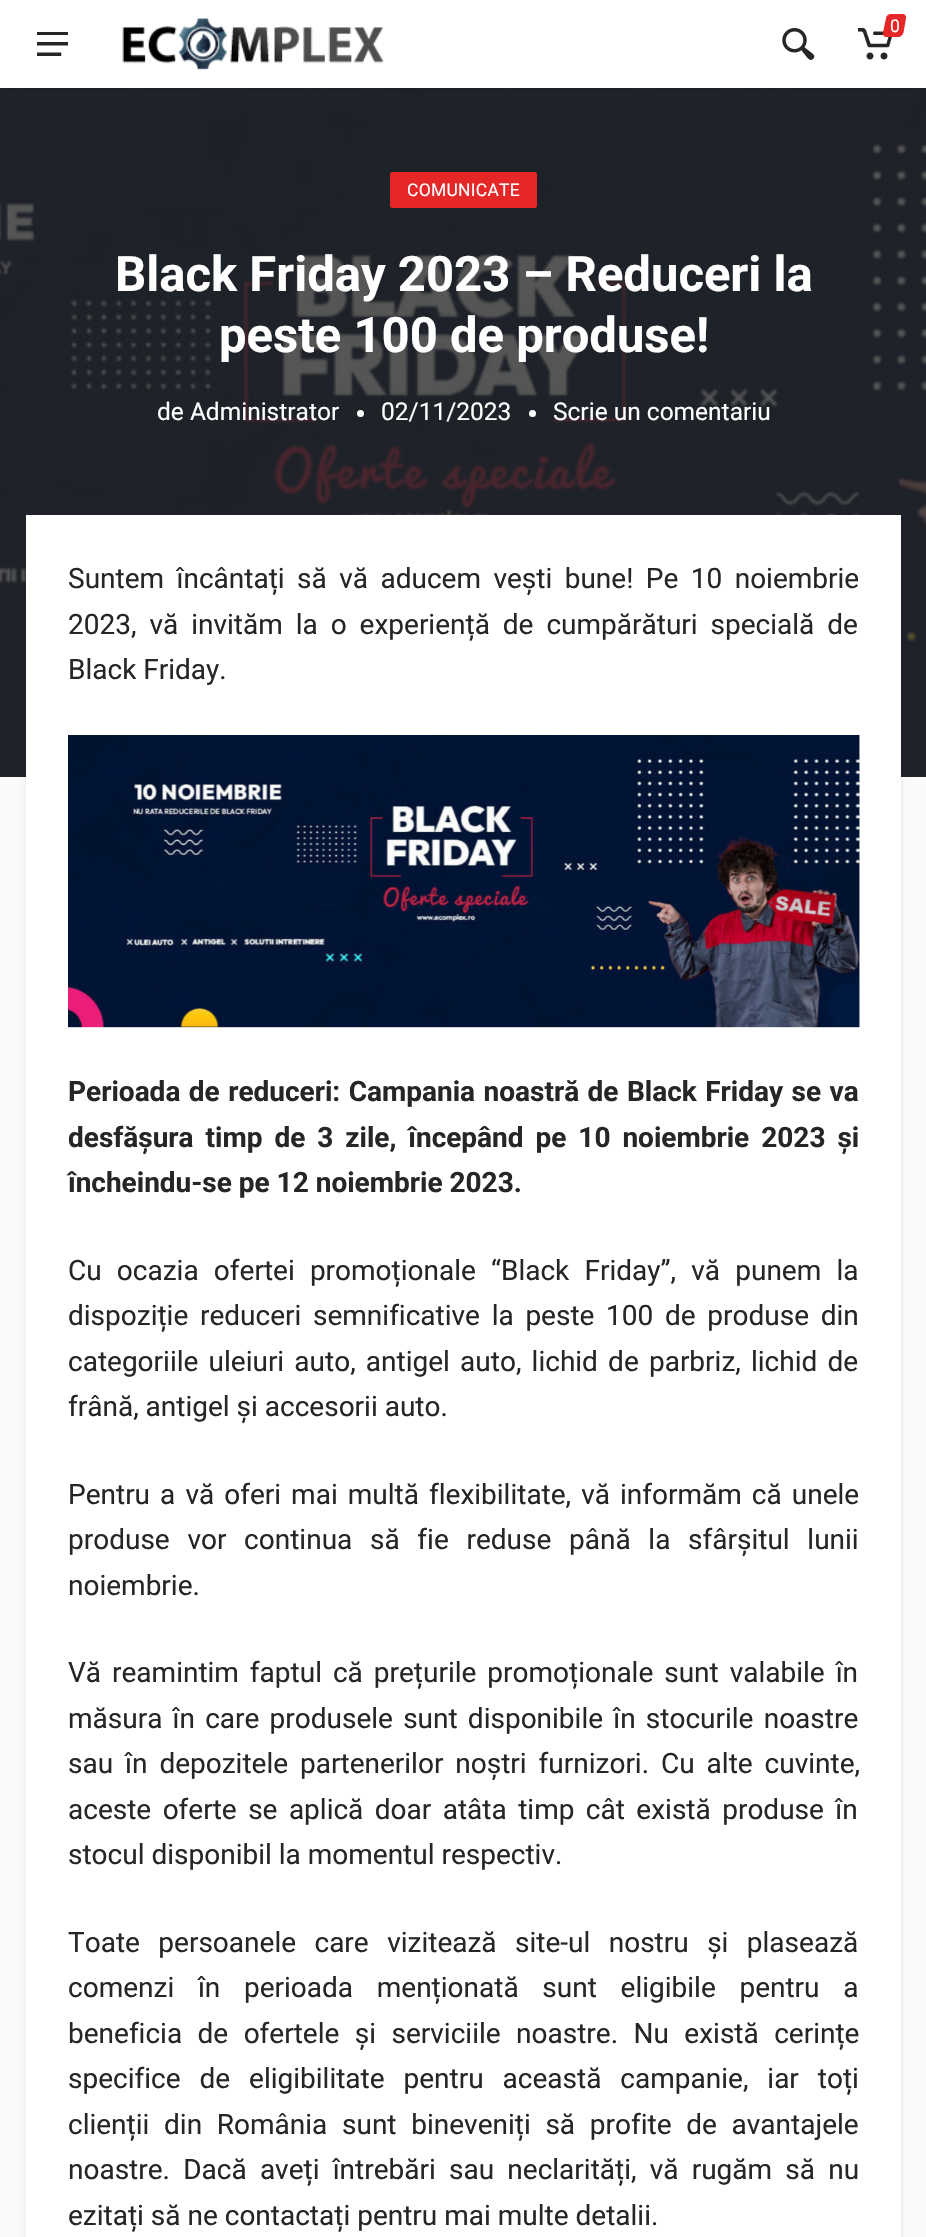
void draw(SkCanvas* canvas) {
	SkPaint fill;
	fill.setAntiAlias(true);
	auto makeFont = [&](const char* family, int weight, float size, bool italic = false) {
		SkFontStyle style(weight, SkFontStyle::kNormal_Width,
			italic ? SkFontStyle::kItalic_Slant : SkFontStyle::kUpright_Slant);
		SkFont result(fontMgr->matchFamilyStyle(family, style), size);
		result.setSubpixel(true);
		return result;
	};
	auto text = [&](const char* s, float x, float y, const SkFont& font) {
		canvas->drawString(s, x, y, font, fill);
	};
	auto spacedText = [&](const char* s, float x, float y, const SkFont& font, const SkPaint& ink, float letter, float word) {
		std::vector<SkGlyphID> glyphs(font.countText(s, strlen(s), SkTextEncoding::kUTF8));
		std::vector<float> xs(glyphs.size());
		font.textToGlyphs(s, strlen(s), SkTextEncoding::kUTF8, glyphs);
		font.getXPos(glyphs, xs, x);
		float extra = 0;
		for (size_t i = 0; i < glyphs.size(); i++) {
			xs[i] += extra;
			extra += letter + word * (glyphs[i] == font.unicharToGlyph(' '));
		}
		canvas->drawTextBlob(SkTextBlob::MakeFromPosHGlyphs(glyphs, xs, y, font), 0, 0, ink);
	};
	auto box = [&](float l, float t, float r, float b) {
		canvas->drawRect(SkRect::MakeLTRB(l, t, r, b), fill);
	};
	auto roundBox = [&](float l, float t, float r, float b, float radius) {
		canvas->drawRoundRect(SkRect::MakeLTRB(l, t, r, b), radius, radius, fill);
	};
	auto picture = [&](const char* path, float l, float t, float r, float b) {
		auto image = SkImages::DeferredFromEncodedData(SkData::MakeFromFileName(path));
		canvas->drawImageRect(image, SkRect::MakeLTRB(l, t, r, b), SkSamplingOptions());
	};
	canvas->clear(0xFFFAFAFA);
	fill.setColor(0xFF262626);
	box(0, 88, 926, 777);
	picture("image4.png", 0, 88, 926, 777);
	fill.setColor(0x17000000);
	fill.setMaskFilter(SkMaskFilter::MakeBlur(kNormal_SkBlurStyle, 2.5f));
	canvas->drawRect(SkRect::MakeLTRB(0, 2, 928, 89), fill);
	fill.setMaskFilter(nullptr);
	fill.setColor(0xFFFFFFFF);
	box(0, 0, 926, 88);
	picture("image0.png", 122, 18, 384, 71);
	picture("image1.png", 858, 28, 892, 60);
	fill.setColor(0xFFE52727);
	canvas->drawPath(SkPathBuilder().moveTo(891, 14).lineTo(902.5f, 14).cubicTo(905, 14, 906.5f, 16, 906, 18.5f).lineTo(903.5f, 32.5f).cubicTo(903, 35, 900.5f, 37, 898, 37).lineTo(886.5f, 37).cubicTo(884, 37, 882.5f, 35, 883, 32.5f).lineTo(886, 18.5f).cubicTo(886, 16, 888.5f, 14, 891, 14).close().detach(), fill);
	picture("image2.png", 782, 28, 815, 60);
	picture("image3.png", 37, 32, 68, 56);
	roundBox(390, 172, 537, 208, 2.5f);
	fill.setColor(0xFFFFFFFF);
	canvas->drawCircle(360.5f, 413.5f, 3.5f, fill);
	canvas->drawCircle(532.5f, 413.5f, 3.5f, fill);
	fill.setColor(0x17000000);
	fill.setMaskFilter(SkMaskFilter::MakeBlur(kNormal_SkBlurStyle, 2.5f));
	canvas->drawRect(SkRect::MakeLTRB(26, 516, 901, 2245), fill);
	fill.setMaskFilter(nullptr);
	fill.setColor(0xFFFFFFFF);
	box(26, 515, 901, 2237);
	picture("image5.png", 68, 735, 860, 1028);
	auto font1 = makeFont("Roboto", 400, 17.5f);
	text("0", 890, 32, font1);
	spacedText("COMUNICATE", 407, 196, font1, fill, 0.25f, 0);
	auto font2 = makeFont("Roboto", 700, 49);
	text("Black Friday 2023 – Reduceri la", 115, 291, font2);
	text("peste 100 de produse!", 219, 352, font2);
	auto font3 = makeFont("Roboto", 400, 24.5f);
	text("de Administrator", 157, 420, font3);
	text("02/11/2023", 381, 420, font3);
	text("Scrie un comentariu", 553, 420, font3);
	auto font4 = makeFont("Roboto", 400, 28);
	fill.setColor(0xFF262626);
	spacedText("Suntem încântați să vă aducem vești bune! Pe 10 noiembrie", 68, 588, font4, fill, 0, 5.5f);
	spacedText("2023, vă invităm la o experiență de cumpărături specială de", 68, 634, font4, fill, 0, 6);
	text("Black Friday.", 68, 679, font4);
	auto font5 = makeFont("Roboto", 700, 28);
	spacedText("Perioada de reduceri: Campania noastră de Black Friday se va", 68, 1101, font5, fill, 0, 1.5f);
	spacedText("desfășura timp de 3 zile, începând pe 10 noiembrie 2023 și", 68, 1147, font5, fill, 0, 5);
	text("încheindu-se pe 12 noiembrie 2023.", 68, 1192, font5);
	spacedText("Cu ocazia ofertei promoționale “Black Friday”, vă punem la", 68, 1280, font4, fill, 0, 8.25f);
	spacedText("dispoziție reduceri semnificative la peste 100 de produse din", 68, 1325, font4, fill, 0, 4.75f);
	spacedText("categoriile uleiuri auto, antigel auto, lichid de parbriz, lichid de", 68, 1371, font4, fill, 0, 3.25f);
	text("frână, antigel și accesorii auto.", 68, 1416, font4);
	spacedText("Pentru a vă oferi mai multă flexibilitate, vă informăm că unele", 68, 1504, font4, fill, 0, 3.1f);
	spacedText("produse vor continua să fie reduse până la sfârșitul lunii", 68, 1549, font4, fill, 0, 10.75f);
	text("noiembrie.", 68, 1595, font4);
	spacedText("Vă reamintim faptul că prețurile promoționale sunt valabile în", 68, 1682, font4, fill, 0, 4);
	spacedText("măsura în care produsele sunt disponibile în stocurile noastre", 68, 1728, font4, fill, 0, 3.25f);
	spacedText("sau în depozitele partenerilor noștri furnizori. Cu alte cuvinte,", 68, 1773, font4, fill, 0, 5);
	spacedText("aceste oferte se aplică doar atâta timp cât există produse în", 68, 1819, font4, fill, 0, 4.5f);
	text("stocul disponibil la momentul respectiv.", 68, 1864, font4);
	spacedText("Toate persoanele care vizitează site-ul nostru și plasează", 68, 1952, font4, fill, 0, 11.5f);
	spacedText("comenzi în perioada menționată sunt eligibile pentru a", 68, 1997, font4, fill, 0, 16.75f);
	spacedText("beneficia de ofertele și serviciile noastre. Nu există cerințe", 68, 2043, font4, fill, 0, 8.5f);
	spacedText("specifice de eligibilitate pentru această campanie, iar toți", 68, 2088, font4, fill, 0, 12);
	spacedText("clienții din România sunt bineveniți să profite de avantajele", 68, 2134, font4, fill, 0, 7.75f);
	spacedText("noastre. Dacă aveți întrebări sau neclarități, vă rugăm să nu", 68, 2179, font4, fill, 0, 6.25f);
	text("ezitați să ne contactați pentru mai multe detalii.", 68, 2225, font4);
}
